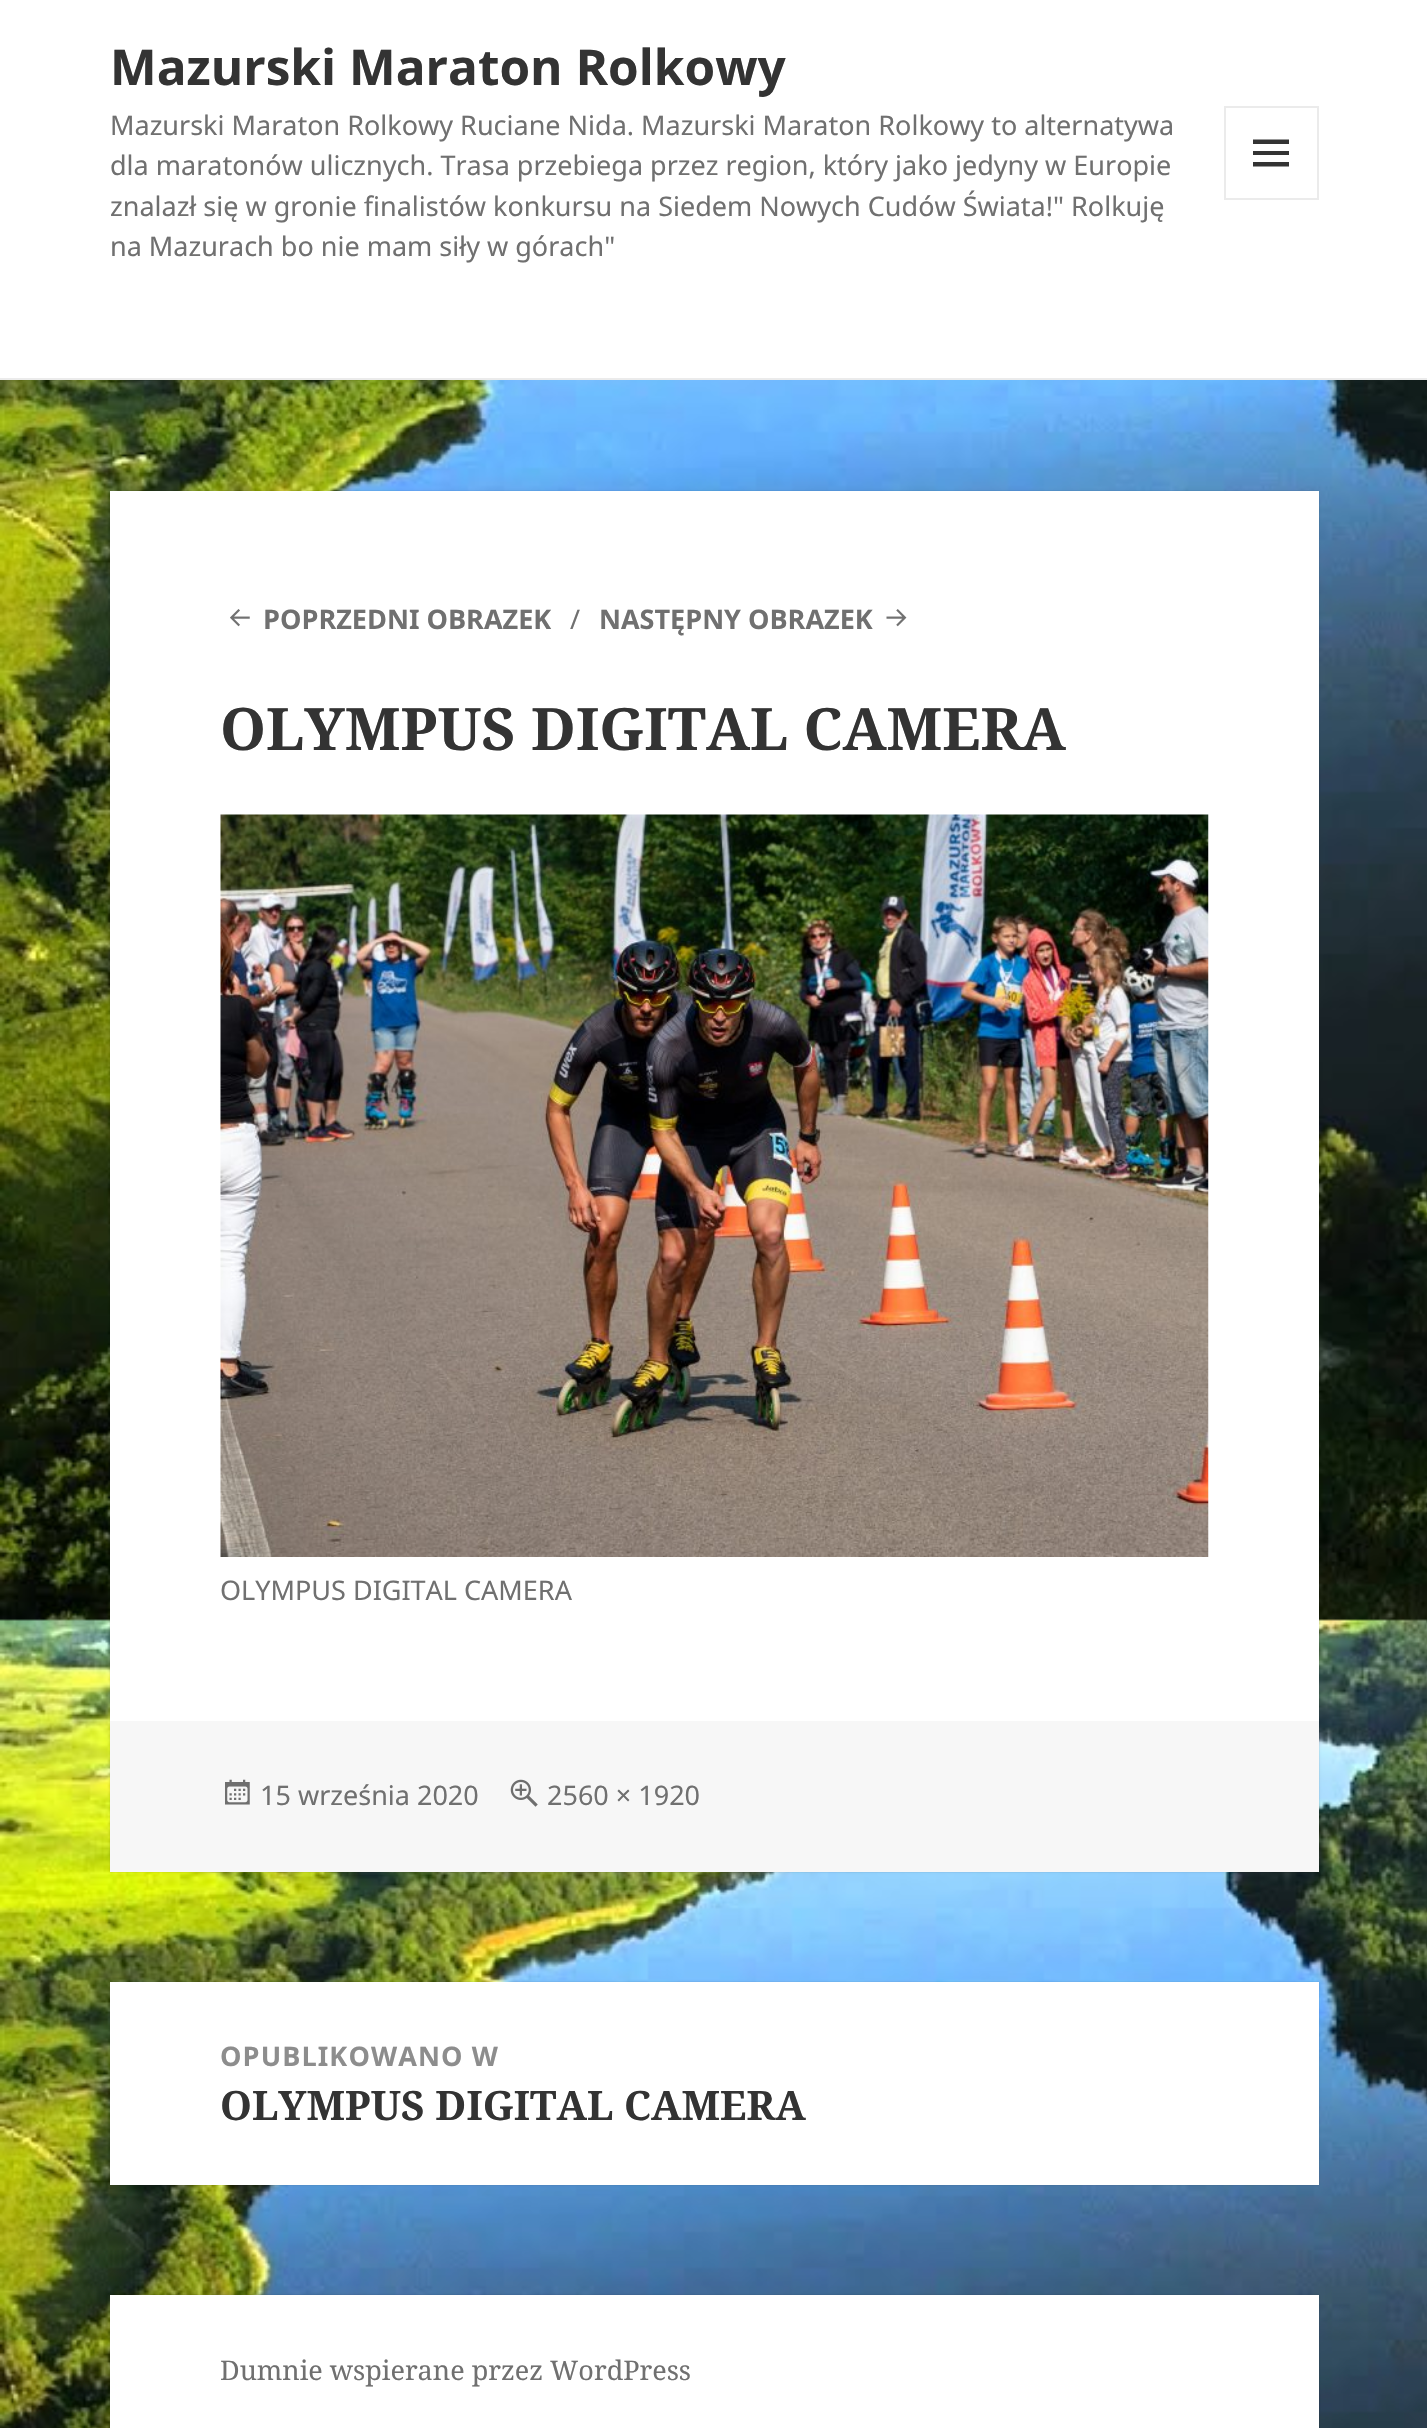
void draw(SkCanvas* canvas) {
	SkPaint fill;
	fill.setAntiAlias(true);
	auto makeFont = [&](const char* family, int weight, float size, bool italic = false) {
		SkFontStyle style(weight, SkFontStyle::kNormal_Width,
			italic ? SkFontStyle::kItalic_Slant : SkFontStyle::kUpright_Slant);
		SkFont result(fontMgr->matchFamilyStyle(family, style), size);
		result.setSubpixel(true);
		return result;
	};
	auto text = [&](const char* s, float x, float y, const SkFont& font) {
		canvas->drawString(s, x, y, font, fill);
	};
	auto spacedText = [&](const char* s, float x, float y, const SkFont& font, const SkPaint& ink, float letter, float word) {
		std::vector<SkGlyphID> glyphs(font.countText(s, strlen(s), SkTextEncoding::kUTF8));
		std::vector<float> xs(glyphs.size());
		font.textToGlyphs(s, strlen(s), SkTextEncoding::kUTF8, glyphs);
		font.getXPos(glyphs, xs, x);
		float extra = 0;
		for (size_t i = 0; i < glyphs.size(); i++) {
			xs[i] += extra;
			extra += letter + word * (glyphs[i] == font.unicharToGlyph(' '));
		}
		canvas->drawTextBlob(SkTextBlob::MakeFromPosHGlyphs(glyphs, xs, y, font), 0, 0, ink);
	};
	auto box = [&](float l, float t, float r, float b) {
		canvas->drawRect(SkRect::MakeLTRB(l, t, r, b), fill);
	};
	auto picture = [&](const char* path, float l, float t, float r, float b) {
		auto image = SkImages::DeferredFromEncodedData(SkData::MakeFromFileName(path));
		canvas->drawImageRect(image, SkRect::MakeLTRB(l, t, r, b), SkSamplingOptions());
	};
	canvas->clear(0xFFFFFFFF);
	picture("image0.png", 0, 380, 1427, 2428);
	fill.setColor(0xFFEBEBEB);
	box(0, 378, 1427, 380);
	fill.setStyle(SkPaint::kStroke_Style);
	fill.setStrokeWidth(2);
	canvas->drawRect(SkRect::MakeLTRB(1225, 107, 1318, 199), fill);
	fill.setStyle(SkPaint::kFill_Style);
	fill.setColor(0xFF333333);
	canvas->drawPath(SkPathBuilder().moveTo(1253, 166.5f).lineTo(1253, 162).lineTo(1289, 162).lineTo(1289, 166.5f).close().moveTo(1253, 139.5f).lineTo(1289, 139.5f).lineTo(1289, 144).lineTo(1253, 144).close().moveTo(1253, 155).lineTo(1253, 151).lineTo(1289, 151).lineTo(1289, 155).close().detach(), fill);
	fill.setColor(0x26000000);
	fill.setMaskFilter(SkMaskFilter::MakeBlur(kNormal_SkBlurStyle, 1));
	canvas->drawRect(SkRect::MakeLTRB(110, 491, 1319, 1872), fill);
	fill.setMaskFilter(nullptr);
	fill.setColor(0xFFFFFFFF);
	box(110, 491, 1319, 1721);
	picture("image1.png", 230, 609, 250, 627);
	picture("image2.png", 886, 609, 907, 627);
	picture("image3.png", 220, 814, 1209, 1557);
	fill.setColor(0xFFF7F7F7);
	box(110, 1721, 1319, 1872);
	picture("image4.png", 225, 1779, 250, 1805);
	picture("image5.png", 510, 1779, 538, 1807);
	fill.setColor(0x26000000);
	fill.setMaskFilter(SkMaskFilter::MakeBlur(kNormal_SkBlurStyle, 1));
	canvas->drawRect(SkRect::MakeLTRB(110, 1982, 1319, 2185), fill);
	fill.setMaskFilter(nullptr);
	fill.setColor(0xFFFFFFFF);
	box(110, 1982, 1319, 2185);
	fill.setColor(0x26000000);
	fill.setMaskFilter(SkMaskFilter::MakeBlur(kNormal_SkBlurStyle, 1));
	canvas->drawRect(SkRect::MakeLTRB(110, 2295, 1319, 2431), fill);
	fill.setMaskFilter(nullptr);
	fill.setColor(0xFFFFFFFF);
	box(110, 2295, 1319, 2428);
	auto font1 = makeFont("Noto Sans", 700, 49.5f);
	fill.setColor(0xFF333333);
	text("Mazurski Maraton Rolkowy", 110, 85, font1);
	auto font2 = makeFont("Noto Sans", 400, 27);
	fill.setColor(0xFF707070);
	text("Mazurski Maraton Rolkowy Ruciane Nida. Mazurski Maraton Rolkowy to alternatywa", 110, 135, font2);
	text("dla maratonów ulicznych. Trasa przebiega przez region, który jako jedyny w Europie", 110, 175, font2);
	text("znalazł się w gronie finalistów konkursu na Siedem Nowych Cudów Świata!\" Rolkuję", 110, 216, font2);
	text("na Mazurach bo nie mam siły w górach\"", 110, 256, font2);
	auto font3 = makeFont("Noto Sans", 700, 27);
	text("POPRZEDNI OBRAZEK", 263, 629, font3);
	text("∕", 570, 629, font2);
	text("NASTĘPNY OBRAZEK", 599, 629, font3);
	auto font4 = makeFont("Noto Serif", 700, 58.5f);
	fill.setColor(0xFF333333);
	text("OLYMPUS DIGITAL CAMERA", 220, 750, font4);
	fill.setColor(0xFF707070);
	text("OLYMPUS DIGITAL CAMERA", 220, 1600, font2);
	text("15 września 2020", 260, 1805, font2);
	text("2560 × 1920", 547, 1805, font2);
	fill.setColor(0xFF8D8D8D);
	spacedText("OPUBLIKOWANO W", 220, 2066, font3, fill, 1.1f, 0);
	auto font5 = makeFont("Noto Serif", 700, 40.5f);
	fill.setColor(0xFF333333);
	text("OLYMPUS DIGITAL CAMERA", 220, 2120, font5);
	auto font6 = makeFont("Noto Serif", 400, 27);
	fill.setColor(0xFF707070);
	text("Dumnie wspierane przez WordPress", 220, 2380, font6);
}
